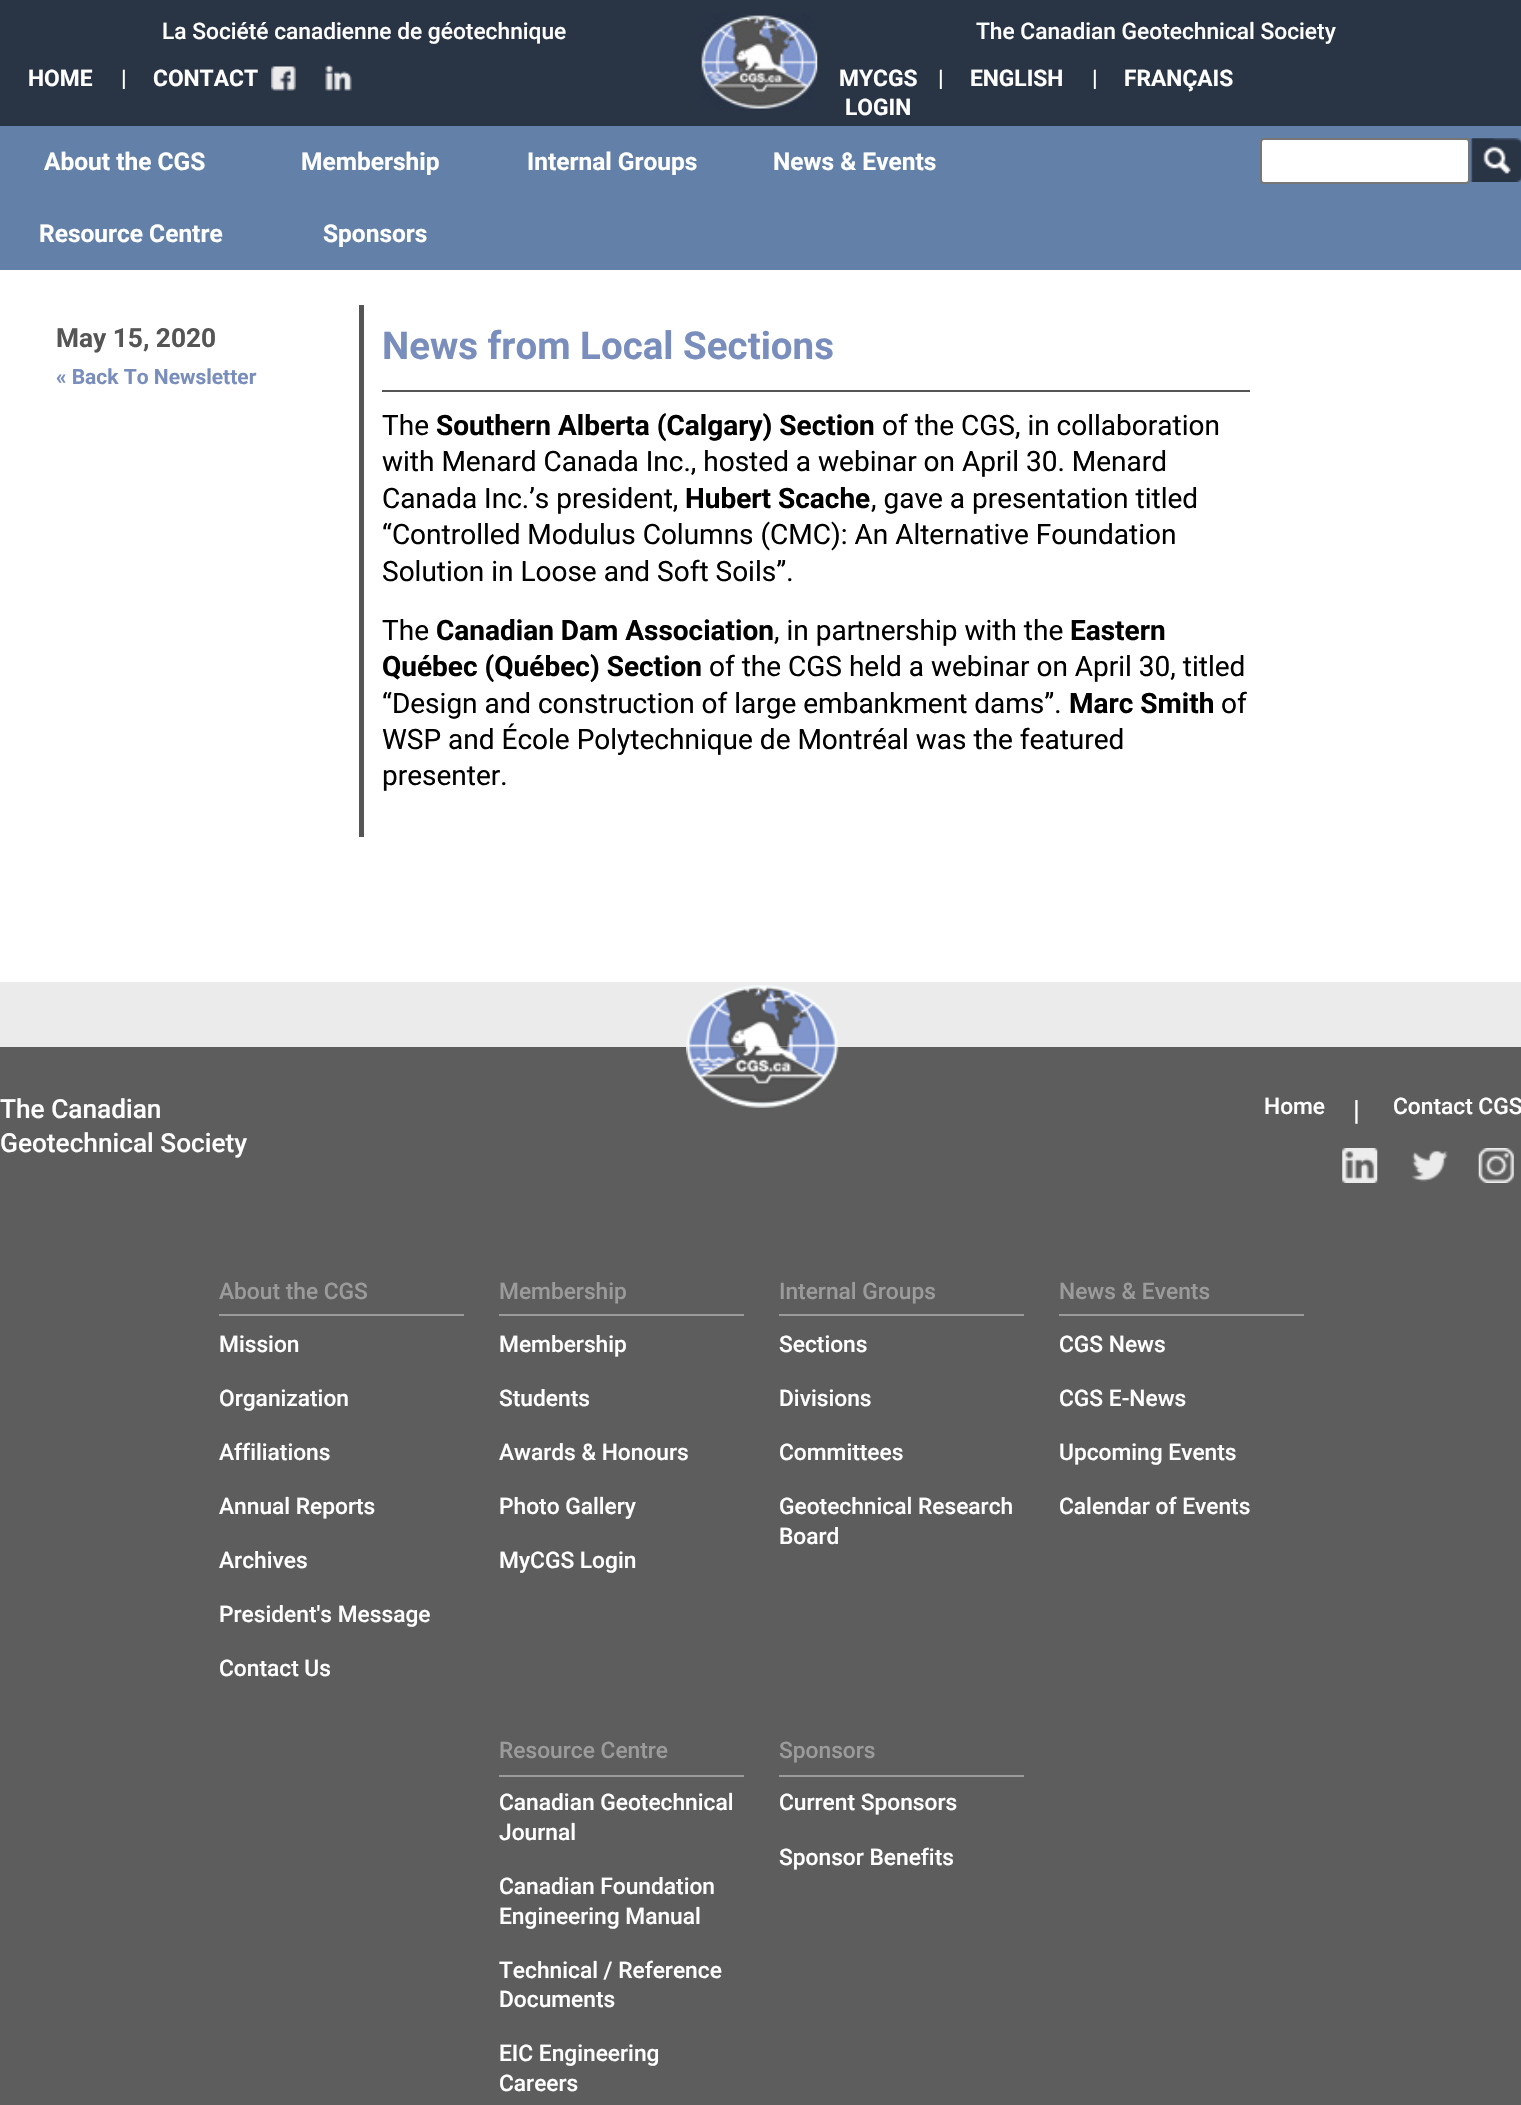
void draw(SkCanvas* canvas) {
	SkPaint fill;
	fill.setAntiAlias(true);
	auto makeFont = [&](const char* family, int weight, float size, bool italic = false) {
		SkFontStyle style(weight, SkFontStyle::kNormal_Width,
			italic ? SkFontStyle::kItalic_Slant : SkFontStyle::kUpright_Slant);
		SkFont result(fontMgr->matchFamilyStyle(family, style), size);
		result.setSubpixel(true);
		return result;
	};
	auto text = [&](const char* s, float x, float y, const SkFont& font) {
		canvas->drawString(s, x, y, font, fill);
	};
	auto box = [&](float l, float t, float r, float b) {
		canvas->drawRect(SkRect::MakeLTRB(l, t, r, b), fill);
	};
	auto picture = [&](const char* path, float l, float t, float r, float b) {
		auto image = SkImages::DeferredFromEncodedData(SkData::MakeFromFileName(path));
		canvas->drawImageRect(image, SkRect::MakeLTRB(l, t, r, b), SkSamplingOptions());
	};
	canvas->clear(0xFFFFFFFF);
	fill.setColor(0xFF293445);
	box(0, 0, 1521, 126);
	picture("image0.png", 271, 66, 296, 91);
	picture("image1.png", 325, 64, 352, 91);
	picture("image2.png", 700, 14, 818, 110);
	fill.setColor(0xFF6380A8);
	box(0, 126, 1521, 270);
	fill.setColor(0xFFFFFFFF);
	canvas->drawRoundRect(SkRect::MakeLTRB(1261, 139, 1469, 183), 3, 3, fill);
	fill.setStyle(SkPaint::kStroke_Style);
	fill.setStrokeWidth(2);
	fill.setColor(0xFF767676);
	canvas->drawRoundRect(SkRect::MakeLTRB(1261, 139, 1469, 183), 3, 3, fill);
	picture("image3.png", 1470, 138, 1521, 182);
	fill.setStyle(SkPaint::kFill_Style);
	fill.setColor(0xFF555555);
	box(359, 305, 364, 837);
	box(382, 390, 1250, 392);
	fill.setColor(0xFFEBEBEB);
	box(0, 982, 1521, 1047);
	picture("image4.png", 686, 985, 838, 1047);
	fill.setColor(0xFF5D5D5D);
	box(0, 1047, 1521, 2105);
	picture("image5.png", 686, 1046, 839, 1108);
	picture("image6.png", 1342, 1148, 1378, 1183);
	picture("image7.png", 1412, 1150, 1448, 1182);
	picture("image8.png", 1478, 1148, 1514, 1183);
	fill.setColor(0xFF9B9B9B);
	box(219, 1314, 464, 1316);
	box(499, 1314, 744, 1316);
	box(779, 1314, 1024, 1316);
	box(1059, 1314, 1304, 1316);
	box(499, 1775, 744, 1777);
	box(779, 1775, 1024, 1777);
	auto font1 = makeFont("Roboto", 500, 22.75f);
	fill.setColor(0xFFFFFFFF);
	text("La Société canadienne de géotechnique", 162, 39, font1);
	auto font2 = makeFont("Roboto", 700, 22.75f);
	text("HOME", 28, 86, font2);
	text("|", 121, 86, font1);
	text("CONTACT", 153, 86, font2);
	text("The Canadian Geotechnical Society", 976, 39, font1);
	text("MYCGS", 839, 86, font2);
	text("LOGIN", 845, 115, font2);
	text("|", 938, 86, font1);
	text("ENGLISH", 970, 86, font2);
	text("|", 1092, 86, font1);
	text("FRANÇAIS", 1124, 86, font2);
	auto font3 = makeFont("Roboto", 700, 24.5f);
	text("About the CGS", 44, 170, font3);
	text("Membership", 301, 170, font3);
	text("Internal Groups", 527, 170, font3);
	text("News & Events", 773, 170, font3);
	text("Resource Centre", 39, 242, font3);
	text("Sponsors", 323, 242, font3);
	auto font4 = makeFont("Roboto", 700, 26.25f);
	fill.setColor(0xFF555555);
	text("May 15, 2020", 56, 347, font4);
	auto font5 = makeFont("Roboto", 700, 21);
	fill.setColor(0xFF7A8EBD);
	text("« Back To Newsletter", 56, 384, font5);
	auto font6 = makeFont("Roboto", 700, 38.5f);
	text("News from Local Sections", 382, 359, font6);
	auto font7 = makeFont("Roboto", 400, 28);
	fill.setColor(0xFF000000);
	text("The", 382, 435, font7);
	auto font8 = makeFont("Roboto", 700, 28);
	text("Southern Alberta (Calgary) Section", 436, 435, font8);
	text("of the CGS, in collaboration", 882, 435, font7);
	text("with Menard Canada Inc., hosted a webinar on April 30. Menard", 382, 471, font7);
	text("Canada Inc.’s president,", 382, 508, font7);
	text("Hubert Scache", 685, 508, font8);
	text(", gave a presentation titled", 871, 508, font7);
	text("“Controlled Modulus Columns (CMC): An Alternative Foundation", 382, 544, font7);
	text("Solution in Loose and Soft Soils”.", 382, 581, font7);
	text("The", 382, 640, font7);
	text("Canadian Dam Association", 436, 640, font8);
	text(", in partnership with the", 774, 640, font7);
	text("Eastern", 1070, 640, font8);
	text("Québec (Québec) Section", 382, 676, font8);
	text("of the CGS held a webinar on April 30, titled", 709, 676, font7);
	text("“Design and construction of large embankment dams”.", 382, 713, font7);
	text("Marc Smith", 1069, 713, font8);
	text("of", 1221, 713, font7);
	text("WSP and École Polytechnique de Montréal was the featured", 382, 749, font7);
	text("presenter.", 382, 785, font7);
	auto font9 = makeFont("Roboto", 500, 26.25f);
	fill.setColor(0xFFFFFFFF);
	text("The Canadian", 0, 1118, font9);
	text("Geotechnical Society", 0, 1152, font9);
	text("Home", 1264, 1114, font1);
	text("|", 1353, 1120, font7);
	text("Contact CGS", 1393, 1114, font1);
	fill.setColor(0xFF9B9B9B);
	text("About the CGS", 219, 1299, font1);
	fill.setColor(0xFFFFFFFF);
	text("Mission", 219, 1352, font1);
	text("Organization", 219, 1406, font1);
	text("Affiliations", 219, 1460, font1);
	text("Annual Reports", 219, 1514, font1);
	text("Archives", 219, 1568, font1);
	text("President's Message", 219, 1622, font1);
	text("Contact Us", 219, 1676, font1);
	fill.setColor(0xFF9B9B9B);
	text("Membership", 499, 1299, font1);
	fill.setColor(0xFFFFFFFF);
	text("Membership", 499, 1352, font1);
	text("Students", 499, 1406, font1);
	text("Awards & Honours", 499, 1460, font1);
	text("Photo Gallery", 499, 1514, font1);
	text("MyCGS Login", 499, 1568, font1);
	fill.setColor(0xFF9B9B9B);
	text("Internal Groups", 779, 1299, font1);
	fill.setColor(0xFFFFFFFF);
	text("Sections", 779, 1352, font1);
	text("Divisions", 779, 1406, font1);
	text("Committees", 779, 1460, font1);
	text("Geotechnical Research", 779, 1514, font1);
	text("Board", 779, 1544, font1);
	fill.setColor(0xFF9B9B9B);
	text("News & Events", 1059, 1299, font1);
	fill.setColor(0xFFFFFFFF);
	text("CGS News", 1059, 1352, font1);
	text("CGS E-News", 1059, 1406, font1);
	text("Upcoming Events", 1059, 1460, font1);
	text("Calendar of Events", 1059, 1514, font1);
	fill.setColor(0xFF9B9B9B);
	text("Resource Centre", 499, 1758, font1);
	fill.setColor(0xFFFFFFFF);
	text("Canadian Geotechnical", 499, 1810, font1);
	text("Journal", 499, 1840, font1);
	text("Canadian Foundation", 499, 1894, font1);
	text("Engineering Manual", 499, 1924, font1);
	text("Technical / Reference", 499, 1978, font1);
	text("Documents", 499, 2007, font1);
	text("EIC Engineering", 499, 2061, font1);
	text("Careers", 499, 2091, font1);
	fill.setColor(0xFF9B9B9B);
	text("Sponsors", 779, 1758, font1);
	fill.setColor(0xFFFFFFFF);
	text("Current Sponsors", 779, 1810, font1);
	text("Sponsor Benefits", 779, 1865, font1);
}
